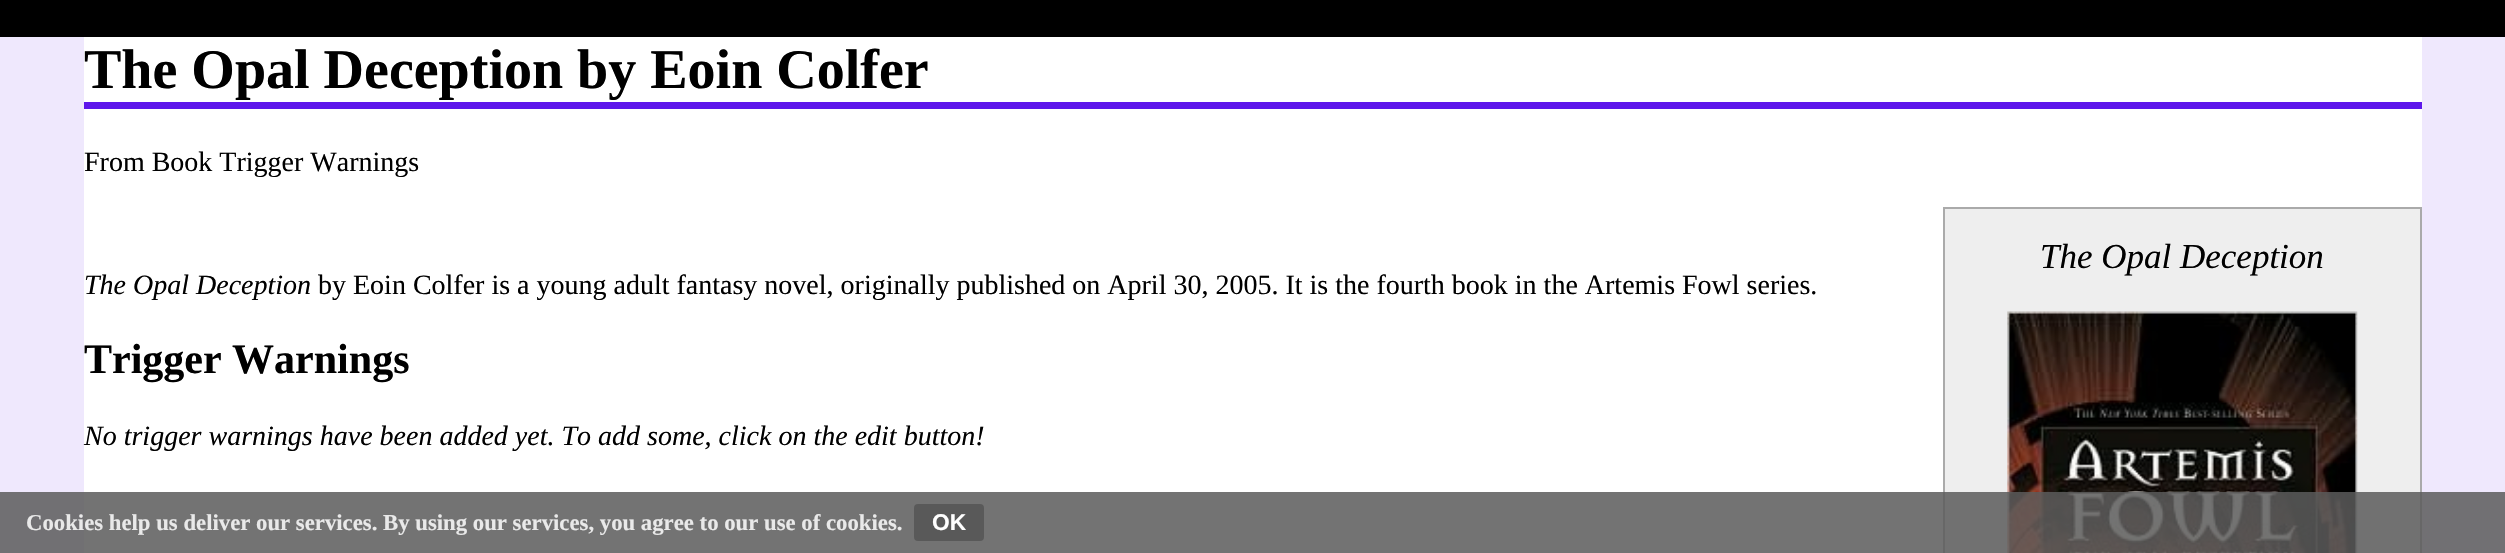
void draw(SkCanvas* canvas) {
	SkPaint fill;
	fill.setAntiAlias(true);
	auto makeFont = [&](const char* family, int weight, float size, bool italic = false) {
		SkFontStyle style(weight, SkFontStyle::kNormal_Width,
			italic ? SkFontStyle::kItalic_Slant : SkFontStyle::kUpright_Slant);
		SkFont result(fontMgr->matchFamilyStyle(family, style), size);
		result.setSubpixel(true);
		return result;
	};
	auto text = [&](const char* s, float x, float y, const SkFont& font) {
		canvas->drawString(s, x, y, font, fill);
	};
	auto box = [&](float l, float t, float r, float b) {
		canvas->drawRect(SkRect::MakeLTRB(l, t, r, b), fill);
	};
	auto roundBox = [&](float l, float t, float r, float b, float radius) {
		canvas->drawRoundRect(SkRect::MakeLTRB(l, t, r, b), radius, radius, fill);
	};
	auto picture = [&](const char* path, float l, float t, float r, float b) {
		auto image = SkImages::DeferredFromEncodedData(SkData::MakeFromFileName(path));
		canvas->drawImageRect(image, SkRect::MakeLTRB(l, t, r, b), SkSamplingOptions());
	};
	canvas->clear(0xFF000000);
	fill.setColor(0xFFEFE8FD);
	box(0, 37, 2505, 553);
	fill.setColor(0xFFFFFFFF);
	box(84, 37, 2422, 553);
	fill.setColor(0xFF5E17EB);
	box(84, 102, 2422, 109);
	fill.setColor(0xFFEEEEEE);
	canvas->drawRect(SkRect::MakeLTRB(1944, 208, 2421, 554), fill);
	fill.setStyle(SkPaint::kStroke_Style);
	fill.setStrokeWidth(2);
	fill.setColor(0xFFAAAAAA);
	canvas->drawRect(SkRect::MakeLTRB(1944, 208, 2421, 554), fill);
	picture("image0.png", 2007, 311, 2358, 553);
	fill.setStyle(SkPaint::kFill_Style);
	fill.setColor(0xD95A5A5A);
	box(0, 492, 2505, 553);
	fill.setColor(0xFF595959);
	roundBox(914, 504, 984, 541, 4);
	auto font1 = makeFont("Liberation Serif", 700, 56);
	fill.setColor(0xFF000000);
	text("The Opal Deception by Eoin Colfer", 84, 88, font1);
	auto font2 = makeFont("Liberation Serif", 400, 28);
	text("From Book Trigger Warnings", 84, 171, font2);
	auto font3 = makeFont("Liberation Serif", 400, 35, true);
	text("The Opal Deception", 2040, 268, font3);
	auto font4 = makeFont("Liberation Serif", 400, 28, true);
	text("The Opal Deception", 84, 294, font4);
	text("by Eoin Colfer is a young adult fantasy novel, originally published on April 30, 2005. It is the fourth book in the Artemis Fowl series.", 318, 294, font2);
	auto font5 = makeFont("Liberation Serif", 700, 42);
	text("Trigger Warnings", 84, 373, font5);
	text("No trigger warnings have been added yet. To add some, click on the edit button!", 84, 445, font4);
	auto font6 = makeFont("Liberation Serif", 700, 22.75f);
	fill.setColor(0xFFE9E9E9);
	text("Cookies help us deliver our services. By using our services, you agree to our use of cookies.", 26, 530, font6);
	auto font7 = makeFont("Liberation Sans", 700, 22.75f);
	fill.setColor(0xFFFFFFFF);
	text("OK", 932, 530, font7);
}
